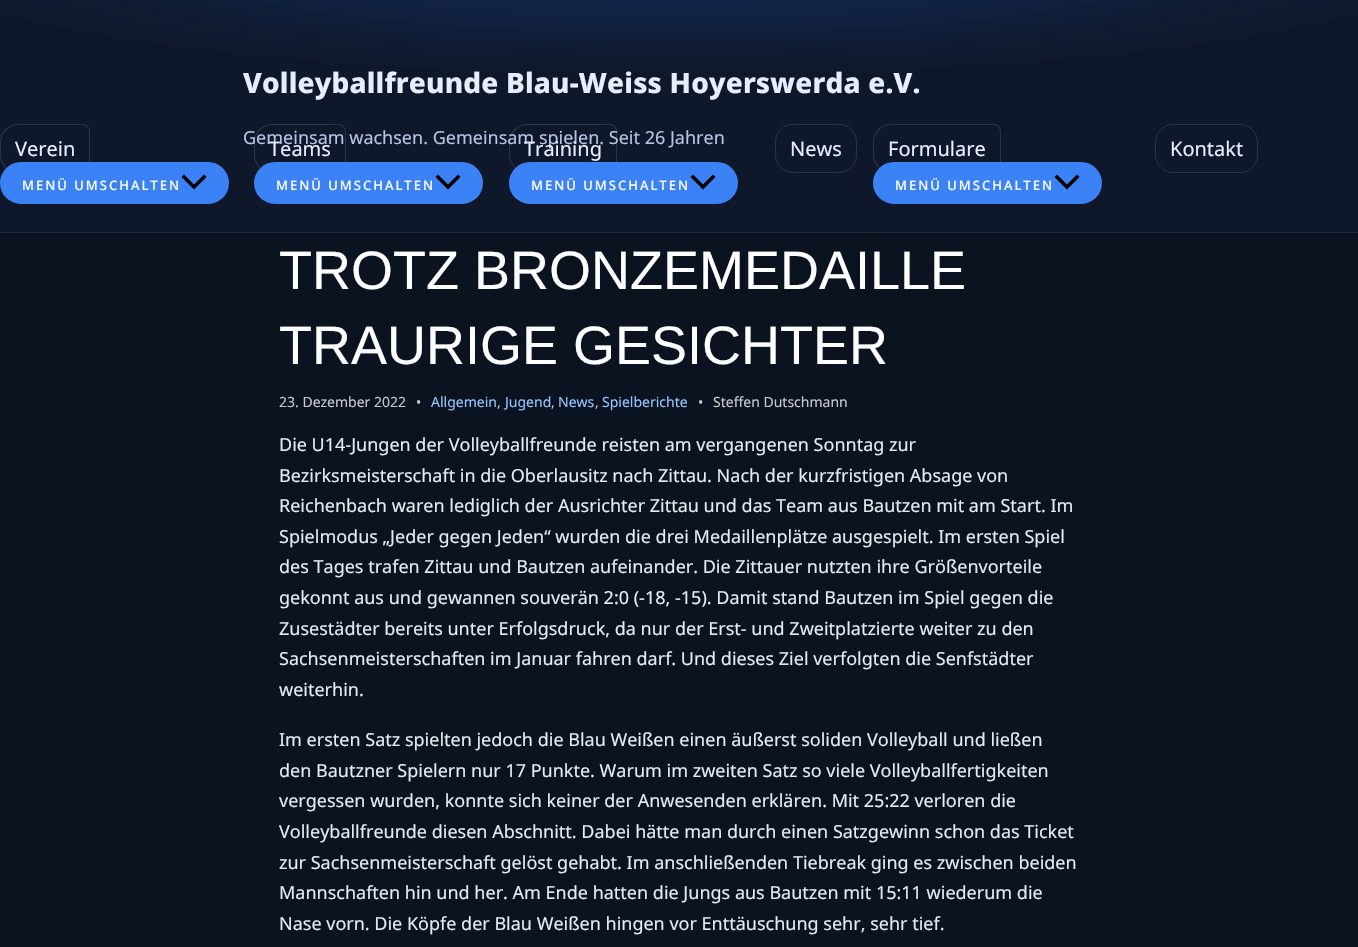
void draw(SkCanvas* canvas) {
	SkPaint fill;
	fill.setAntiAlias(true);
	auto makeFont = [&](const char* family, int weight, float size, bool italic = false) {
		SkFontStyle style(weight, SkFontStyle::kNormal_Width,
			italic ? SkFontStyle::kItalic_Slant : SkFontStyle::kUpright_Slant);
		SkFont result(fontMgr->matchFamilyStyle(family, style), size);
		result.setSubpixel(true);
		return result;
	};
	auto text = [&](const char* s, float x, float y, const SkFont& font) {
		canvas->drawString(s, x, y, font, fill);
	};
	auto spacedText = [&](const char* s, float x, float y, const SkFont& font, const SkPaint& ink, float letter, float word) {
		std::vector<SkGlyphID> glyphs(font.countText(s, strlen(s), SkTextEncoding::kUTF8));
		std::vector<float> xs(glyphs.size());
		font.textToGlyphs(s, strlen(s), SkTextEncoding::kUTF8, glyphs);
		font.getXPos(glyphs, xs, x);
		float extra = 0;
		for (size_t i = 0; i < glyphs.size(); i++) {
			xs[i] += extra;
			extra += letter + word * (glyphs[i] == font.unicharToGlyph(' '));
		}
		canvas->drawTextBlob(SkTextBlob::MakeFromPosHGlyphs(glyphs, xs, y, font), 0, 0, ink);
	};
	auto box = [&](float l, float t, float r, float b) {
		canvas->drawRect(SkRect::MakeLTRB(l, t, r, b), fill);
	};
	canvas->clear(0xFF0B1220);
	fill.setColor(0xFF0F172A);
	box(0, 174, 1358, 232);
	fill.setColor(0xFF1E293B);
	box(0, 232, 1358, 233);
	{
		const SkColor colors[] = {0xFF132D5A, 0xFF0F172A};
		const float stops[] = {0, 0.7f};
		SkMatrix m = SkMatrix::Translate(679, -46).preScale(1141, 176);
		fill.setShader(SkGradientShader::MakeRadial({0, 0}, 1, colors, stops, 2, SkTileMode::kClamp, 0, &m));
		fill.setAlpha(255);
	}
	box(0, 0, 1358, 174);
	fill.setShader(nullptr);
	fill.setColor(0xFF2C3344);
	canvas->drawPath(SkPathBuilder(SkPathFillType::kEvenOdd).moveTo(18, 124).lineTo(75, 124).lineTo(75, 173).lineTo(18, 173).cubicTo(8, 173, 0, 165, 0, 155).lineTo(0, 142).cubicTo(0, 132, 8, 124, 18, 124).close().moveTo(18, 125).lineTo(75, 125).lineTo(75, 172).lineTo(18, 172).cubicTo(9, 172, 1, 164, 1, 155).lineTo(1, 142).cubicTo(1, 133, 9, 125, 18, 125).close().detach(), fill);
	canvas->drawPath(SkPathBuilder(SkPathFillType::kEvenOdd).moveTo(75, 124).lineTo(82, 124).cubicTo(87, 124, 90, 127, 90, 132).lineTo(90, 166).cubicTo(90, 170, 87, 173, 82, 173).lineTo(75, 173).close().moveTo(75, 125).lineTo(82, 125).cubicTo(86, 125, 89, 128, 89, 132).lineTo(89, 166).cubicTo(89, 169, 86, 172, 82, 172).lineTo(75, 172).close().detach(), fill);
	fill.setColor(0xFF3B82F6);
	canvas->drawRoundRect(SkRect::MakeLTRB(1, 163, 228, 203), 20, 20, fill);
	fill.setStyle(SkPaint::kStroke_Style);
	fill.setStrokeWidth(2);
	canvas->drawRoundRect(SkRect::MakeLTRB(1, 163, 228, 203), 20, 20, fill);
	fill.setStyle(SkPaint::kFill_Style);
	fill.setColor(0xFF000000);
	canvas->drawPath(SkPathBuilder().moveTo(181.5f, 177).lineTo(194, 189.5f).lineTo(206.5f, 177).lineTo(204, 174.5f).lineTo(194, 184.5f).lineTo(184, 174.5f).close().detach(), fill);
	fill.setColor(0x1FFFFFFF);
	canvas->drawPath(SkPathBuilder(SkPathFillType::kEvenOdd).moveTo(272, 124).lineTo(331, 124).lineTo(331, 173).lineTo(272, 173).cubicTo(262, 173, 254, 165, 254, 155).lineTo(254, 142).cubicTo(254, 132, 262, 124, 272, 124).close().moveTo(272, 125).lineTo(331, 125).lineTo(331, 172).lineTo(272, 172).cubicTo(263, 172, 255, 164, 255, 155).lineTo(255, 142).cubicTo(255, 133, 263, 125, 272, 125).close().detach(), fill);
	canvas->drawPath(SkPathBuilder(SkPathFillType::kEvenOdd).moveTo(527, 124).lineTo(602, 124).lineTo(602, 173).lineTo(527, 173).cubicTo(517, 173, 509, 165, 509, 155).lineTo(509, 142).cubicTo(509, 132, 517, 124, 527, 124).close().moveTo(527, 125).lineTo(602, 125).lineTo(602, 172).lineTo(527, 172).cubicTo(518, 172, 510, 164, 510, 155).lineTo(510, 142).cubicTo(510, 133, 518, 125, 527, 125).close().detach(), fill);
	canvas->drawPath(SkPathBuilder(SkPathFillType::kEvenOdd).moveTo(602, 124).lineTo(610, 124).cubicTo(614, 124, 617, 127, 617, 132).lineTo(617, 166).cubicTo(617, 170, 614, 173, 610, 173).lineTo(602, 173).close().moveTo(602, 125).lineTo(610, 125).cubicTo(613, 125, 616, 128, 616, 132).lineTo(616, 166).cubicTo(616, 169, 613, 172, 610, 172).lineTo(602, 172).close().detach(), fill);
	fill.setColor(0xFF3B82F6);
	canvas->drawRoundRect(SkRect::MakeLTRB(510, 163, 737, 203), 20, 20, fill);
	fill.setStyle(SkPaint::kStroke_Style);
	canvas->drawRoundRect(SkRect::MakeLTRB(510, 163, 737, 203), 20, 20, fill);
	fill.setStyle(SkPaint::kFill_Style);
	fill.setColor(0xFF000000);
	canvas->drawPath(SkPathBuilder().moveTo(690.5f, 177).lineTo(703, 189.5f).lineTo(715.5f, 177).lineTo(713, 174.5f).lineTo(703, 184.5f).lineTo(693, 174.5f).close().detach(), fill);
	fill.setStyle(SkPaint::kStroke_Style);
	fill.setStrokeWidth(1);
	fill.setColor(0xFF2C3344);
	canvas->drawRoundRect(SkRect::MakeLTRB(775.5f, 124.5f, 856.5f, 172.5f), 17.5f, 17.5f, fill);
	fill.setStyle(SkPaint::kFill_Style);
	canvas->drawPath(SkPathBuilder(SkPathFillType::kEvenOdd).moveTo(891, 124).lineTo(986, 124).lineTo(986, 173).lineTo(891, 173).cubicTo(881, 173, 873, 165, 873, 155).lineTo(873, 142).cubicTo(873, 132, 881, 124, 891, 124).close().moveTo(891, 125).lineTo(986, 125).lineTo(986, 172).lineTo(891, 172).cubicTo(882, 172, 874, 164, 874, 155).lineTo(874, 142).cubicTo(874, 133, 882, 125, 891, 125).close().detach(), fill);
	canvas->drawPath(SkPathBuilder(SkPathFillType::kEvenOdd).moveTo(986, 124).lineTo(994, 124).cubicTo(998, 124, 1001, 127, 1001, 132).lineTo(1001, 166).cubicTo(1001, 170, 998, 173, 994, 173).lineTo(986, 173).close().moveTo(986, 125).lineTo(994, 125).cubicTo(997, 125, 1000, 128, 1000, 132).lineTo(1000, 166).cubicTo(1000, 169, 997, 172, 994, 172).lineTo(986, 172).close().detach(), fill);
	fill.setColor(0xFF3B82F6);
	canvas->drawRoundRect(SkRect::MakeLTRB(874, 163, 1101, 203), 20, 20, fill);
	fill.setStyle(SkPaint::kStroke_Style);
	fill.setStrokeWidth(2);
	canvas->drawRoundRect(SkRect::MakeLTRB(874, 163, 1101, 203), 20, 20, fill);
	fill.setStyle(SkPaint::kFill_Style);
	fill.setColor(0xFF000000);
	canvas->drawPath(SkPathBuilder().moveTo(1054.5f, 177).lineTo(1067, 189.5f).lineTo(1079.5f, 177).lineTo(1077, 174.5f).lineTo(1067, 184.5f).lineTo(1057, 174.5f).close().detach(), fill);
	fill.setStyle(SkPaint::kStroke_Style);
	fill.setStrokeWidth(1);
	fill.setColor(0xFF2C3344);
	canvas->drawRoundRect(SkRect::MakeLTRB(1155.5f, 124.5f, 1257.5f, 172.5f), 17.5f, 17.5f, fill);
	auto font1 = makeFont("Noto Sans", 800, 28);
	fill.setStyle(SkPaint::kFill_Style);
	fill.setColor(0xFFE6EEFC);
	spacedText("Volleyballfreunde Blau-Weiss Hoyerswerda e.V.", 243, 93, font1, fill, 0.2f, 0);
	auto font2 = makeFont("Noto Sans", 400, 18);
	fill.setColor(0xFFB7C4E6);
	text("Gemeinsam wachsen. Gemeinsam spielen. Seit 26 Jahren", 243, 144, font2);
	auto font3 = makeFont("Noto Sans", 400, 20);
	fill.setColor(0xFFE6EEFC);
	text("Verein", 15, 156, font3);
	auto font4 = makeFont("Noto Sans", 500, 13);
	fill.setColor(0xFFFFFFFF);
	spacedText("MENÜ UMSCHALTEN", 22, 190, font4, fill, 2, 0);
	fill.setColor(0xFFE6EEFC);
	text("Teams", 269, 156, font3);
	fill.setColor(0xFF2C3344);
	canvas->drawPath(SkPathBuilder(SkPathFillType::kEvenOdd).moveTo(331, 124).lineTo(338, 124).cubicTo(343, 124, 346, 127, 346, 132).lineTo(346, 166).cubicTo(346, 170, 343, 173, 338, 173).lineTo(331, 173).close().moveTo(331, 125).lineTo(338, 125).cubicTo(342, 125, 345, 128, 345, 132).lineTo(345, 166).cubicTo(345, 169, 342, 172, 338, 172).lineTo(331, 172).close().detach(), fill);
	fill.setColor(0xFF3B82F6);
	canvas->drawRoundRect(SkRect::MakeLTRB(255, 163, 482, 203), 20, 20, fill);
	fill.setStyle(SkPaint::kStroke_Style);
	fill.setStrokeWidth(2);
	canvas->drawRoundRect(SkRect::MakeLTRB(255, 163, 482, 203), 20, 20, fill);
	fill.setStyle(SkPaint::kFill_Style);
	fill.setColor(0xFFFFFFFF);
	spacedText("MENÜ UMSCHALTEN", 276, 190, font4, fill, 2, 0);
	fill.setColor(0xFF000000);
	canvas->drawPath(SkPathBuilder().moveTo(435.5f, 177).lineTo(448, 189.5f).lineTo(460.5f, 177).lineTo(458, 174.5f).lineTo(448, 184.5f).lineTo(438, 174.5f).close().detach(), fill);
	fill.setColor(0xFFE6EEFC);
	text("Training", 524, 156, font3);
	fill.setColor(0xFFFFFFFF);
	spacedText("MENÜ UMSCHALTEN", 531, 190, font4, fill, 2, 0);
	fill.setColor(0xFFE6EEFC);
	text("News", 790, 156, font3);
	text("Formulare", 888, 156, font3);
	fill.setColor(0xFFFFFFFF);
	spacedText("MENÜ UMSCHALTEN", 895, 190, font4, fill, 2, 0);
	fill.setColor(0xFFE6EEFC);
	text("Kontakt", 1170, 156, font3);
	auto font5 = makeFont("Liberation Sans", 400, 54);
	fill.setColor(0xFFFFFFFF);
	text("TROTZ BRONZEMEDAILLE", 279, 289, font5);
	text("TRAURIGE GESICHTER", 279, 364, font5);
	auto font6 = makeFont("Noto Sans", 400, 14);
	fill.setColor(0xFFC9C9C9);
	text("23. Dezember 2022", 279, 407, font6);
	text("•", 416, 407, font6);
	fill.setColor(0xFF93C5FD);
	text("Allgemein", 431, 407, font6);
	fill.setColor(0xFFC9C9C9);
	text(",", 497, 407, font6);
	fill.setColor(0xFF93C5FD);
	text("Jugend", 505, 407, font6);
	fill.setColor(0xFFC9C9C9);
	text(",", 551, 407, font6);
	fill.setColor(0xFF93C5FD);
	text("News", 558, 407, font6);
	fill.setColor(0xFFC9C9C9);
	text(",", 595, 407, font6);
	fill.setColor(0xFF93C5FD);
	text("Spielberichte", 602, 407, font6);
	fill.setColor(0xFFC9C9C9);
	text("•", 698, 407, font6);
	text("Steffen Dutschmann", 713, 407, font6);
	fill.setColor(0xFFE6EAF2);
	text("Die U14-Jungen der Volleyballfreunde reisten am vergangenen Sonntag zur", 279, 451, font2);
	text("Bezirksmeisterschaft in die Oberlausitz nach Zittau. Nach der kurzfristigen Absage von", 279, 482, font2);
	text("Reichenbach waren lediglich der Ausrichter Zittau und das Team aus Bautzen mit am Start. Im", 279, 512, font2);
	text("Spielmodus „Jeder gegen Jeden“ wurden die drei Medaillenplätze ausgespielt. Im ersten Spiel", 279, 543, font2);
	text("des Tages trafen Zittau und Bautzen aufeinander. Die Zittauer nutzten ihre Größenvorteile", 279, 573, font2);
	text("gekonnt aus und gewannen souverän 2:0 (-18, -15). Damit stand Bautzen im Spiel gegen die", 279, 604, font2);
	text("Zusestädter bereits unter Erfolgsdruck, da nur der Erst- und Zweitplatzierte weiter zu den", 279, 635, font2);
	text("Sachsenmeisterschaften im Januar fahren darf. Und dieses Ziel verfolgten die Senfstädter", 279, 665, font2);
	text("weiterhin.", 279, 696, font2);
	text("Im ersten Satz spielten jedoch die Blau Weißen einen äußerst soliden Volleyball und ließen", 279, 746, font2);
	text("den Bautzner Spielern nur 17 Punkte. Warum im zweiten Satz so viele Volleyballfertigkeiten", 279, 777, font2);
	text("vergessen wurden, konnte sich keiner der Anwesenden erklären. Mit 25:22 verloren die", 279, 807, font2);
	text("Volleyballfreunde diesen Abschnitt. Dabei hätte man durch einen Satzgewinn schon das Ticket", 279, 838, font2);
	text("zur Sachsenmeisterschaft gelöst gehabt. Im anschließenden Tiebreak ging es zwischen beiden", 279, 869, font2);
	text("Mannschaften hin und her. Am Ende hatten die Jungs aus Bautzen mit 15:11 wiederum die", 279, 899, font2);
	text("Nase vorn. Die Köpfe der Blau Weißen hingen vor Enttäuschung sehr, sehr tief.", 279, 930, font2);
}
